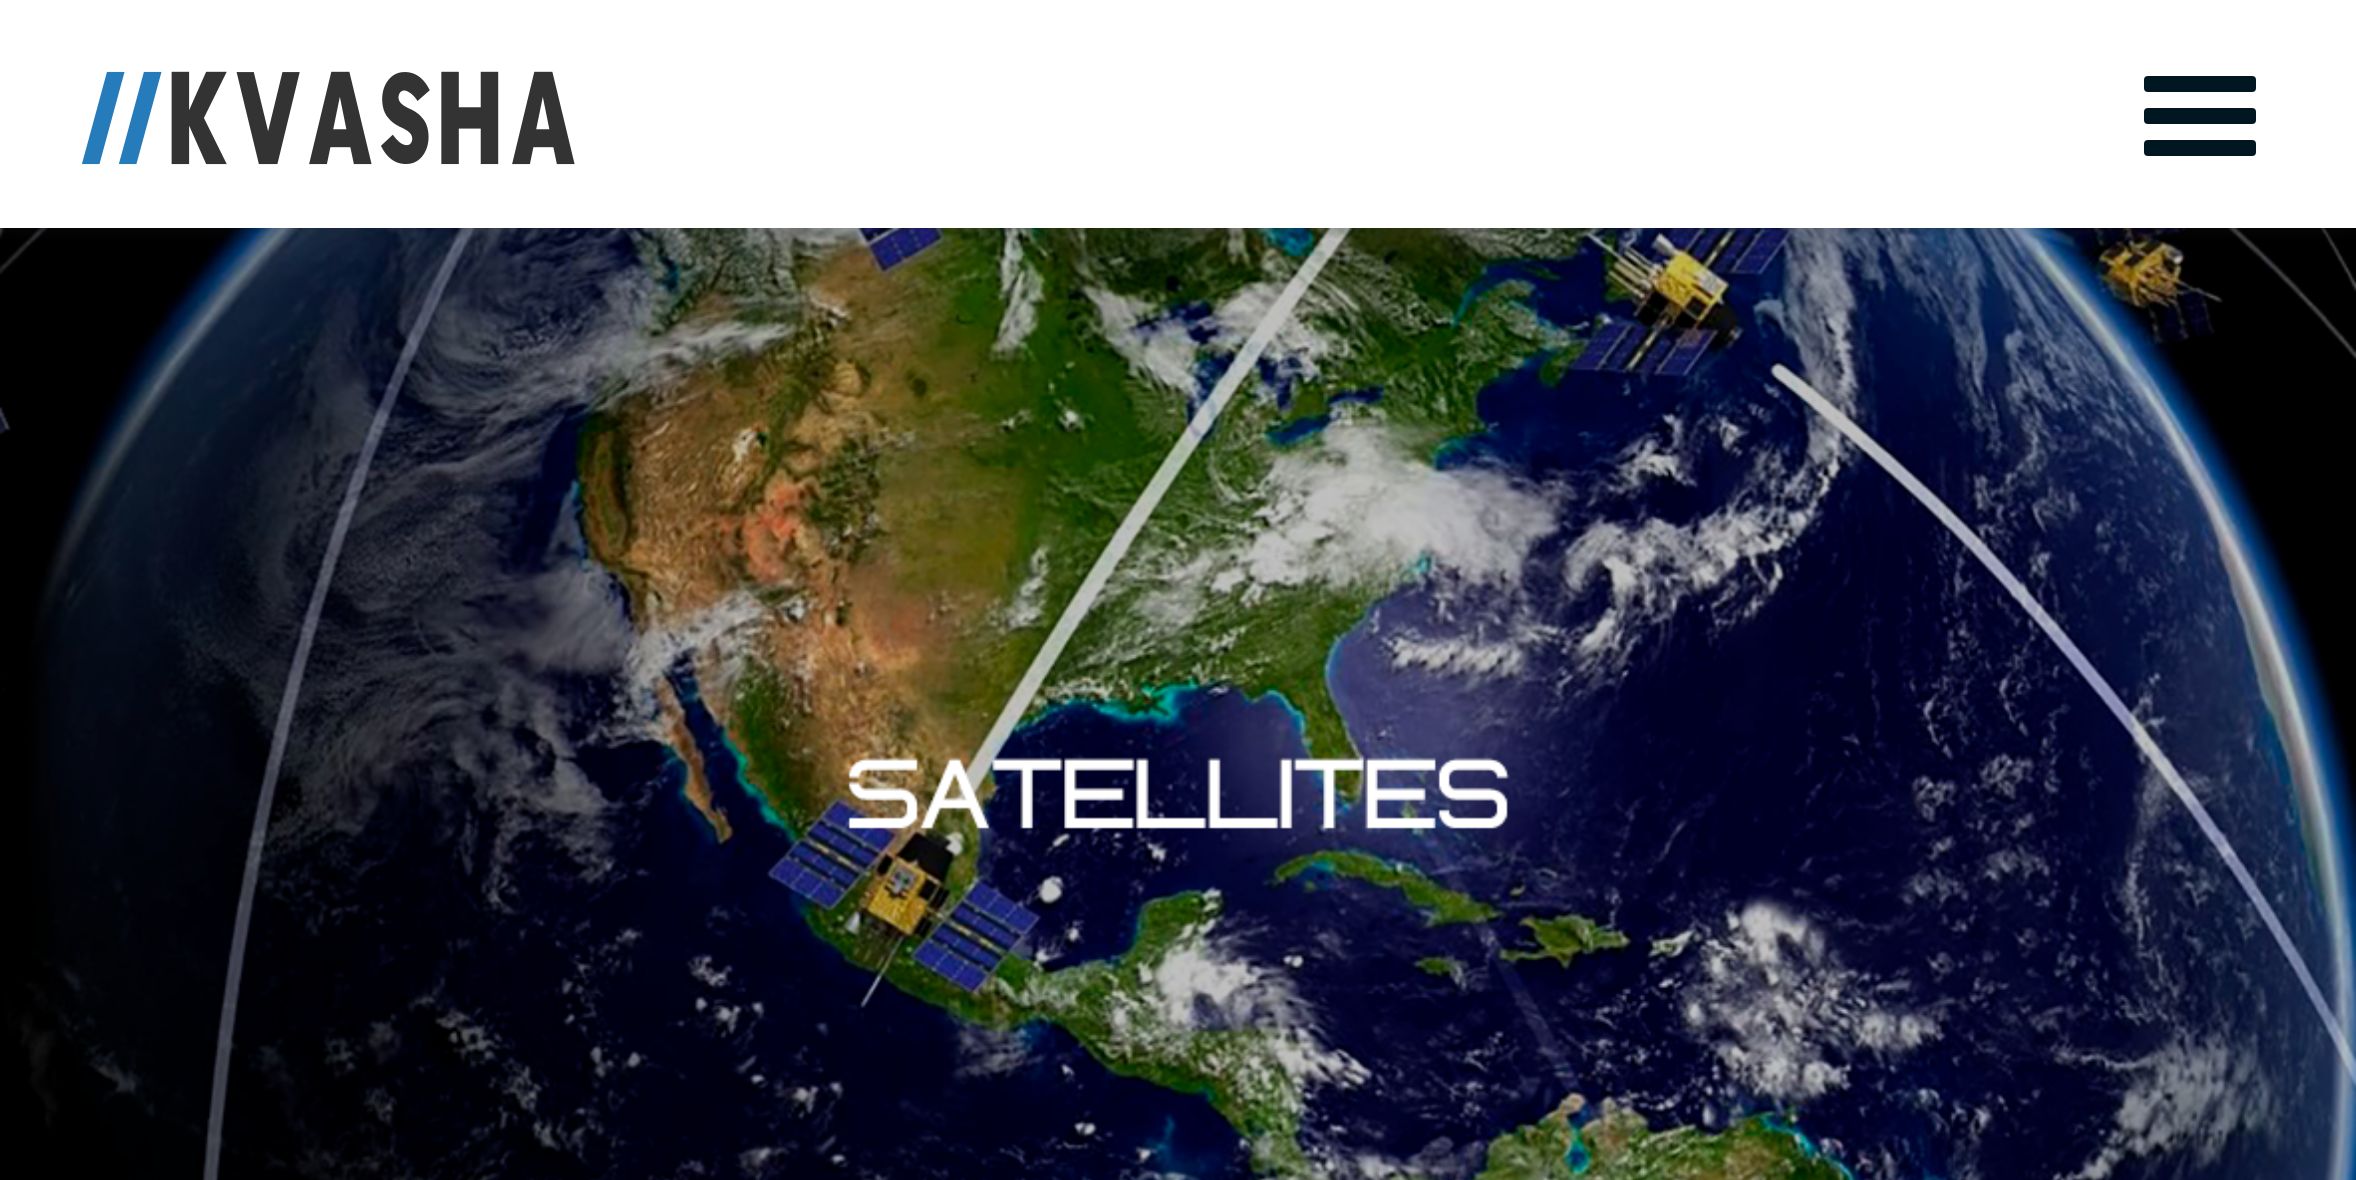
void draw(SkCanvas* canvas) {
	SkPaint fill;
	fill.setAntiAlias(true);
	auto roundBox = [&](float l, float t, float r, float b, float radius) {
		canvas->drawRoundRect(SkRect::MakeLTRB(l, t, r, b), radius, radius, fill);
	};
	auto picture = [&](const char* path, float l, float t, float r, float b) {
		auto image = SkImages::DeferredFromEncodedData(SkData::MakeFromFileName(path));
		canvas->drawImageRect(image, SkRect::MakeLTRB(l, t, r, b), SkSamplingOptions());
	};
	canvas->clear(0xFFFFFFFF);
	picture("image1.png", 0, 228, 2356, 1180);
	canvas->save();
	canvas->clipRect(SkRect::MakeLTRB(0, 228, 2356, 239));
	fill.setColor(0x261B2432);
	fill.setMaskFilter(SkMaskFilter::MakeBlur(kNormal_SkBlurStyle, 6));
	canvas->drawRect(SkRect::MakeLTRB(0, 4, 2356, 232), fill);
	fill.setMaskFilter(nullptr);
	canvas->restore();
	picture("image0.png", 82, 71, 575, 165);
	fill.setColor(0xFF001722);
	roundBox(2144, 76, 2256, 92, 4);
	roundBox(2144, 108, 2256, 124, 4);
	roundBox(2144, 140, 2256, 156, 4);
}
